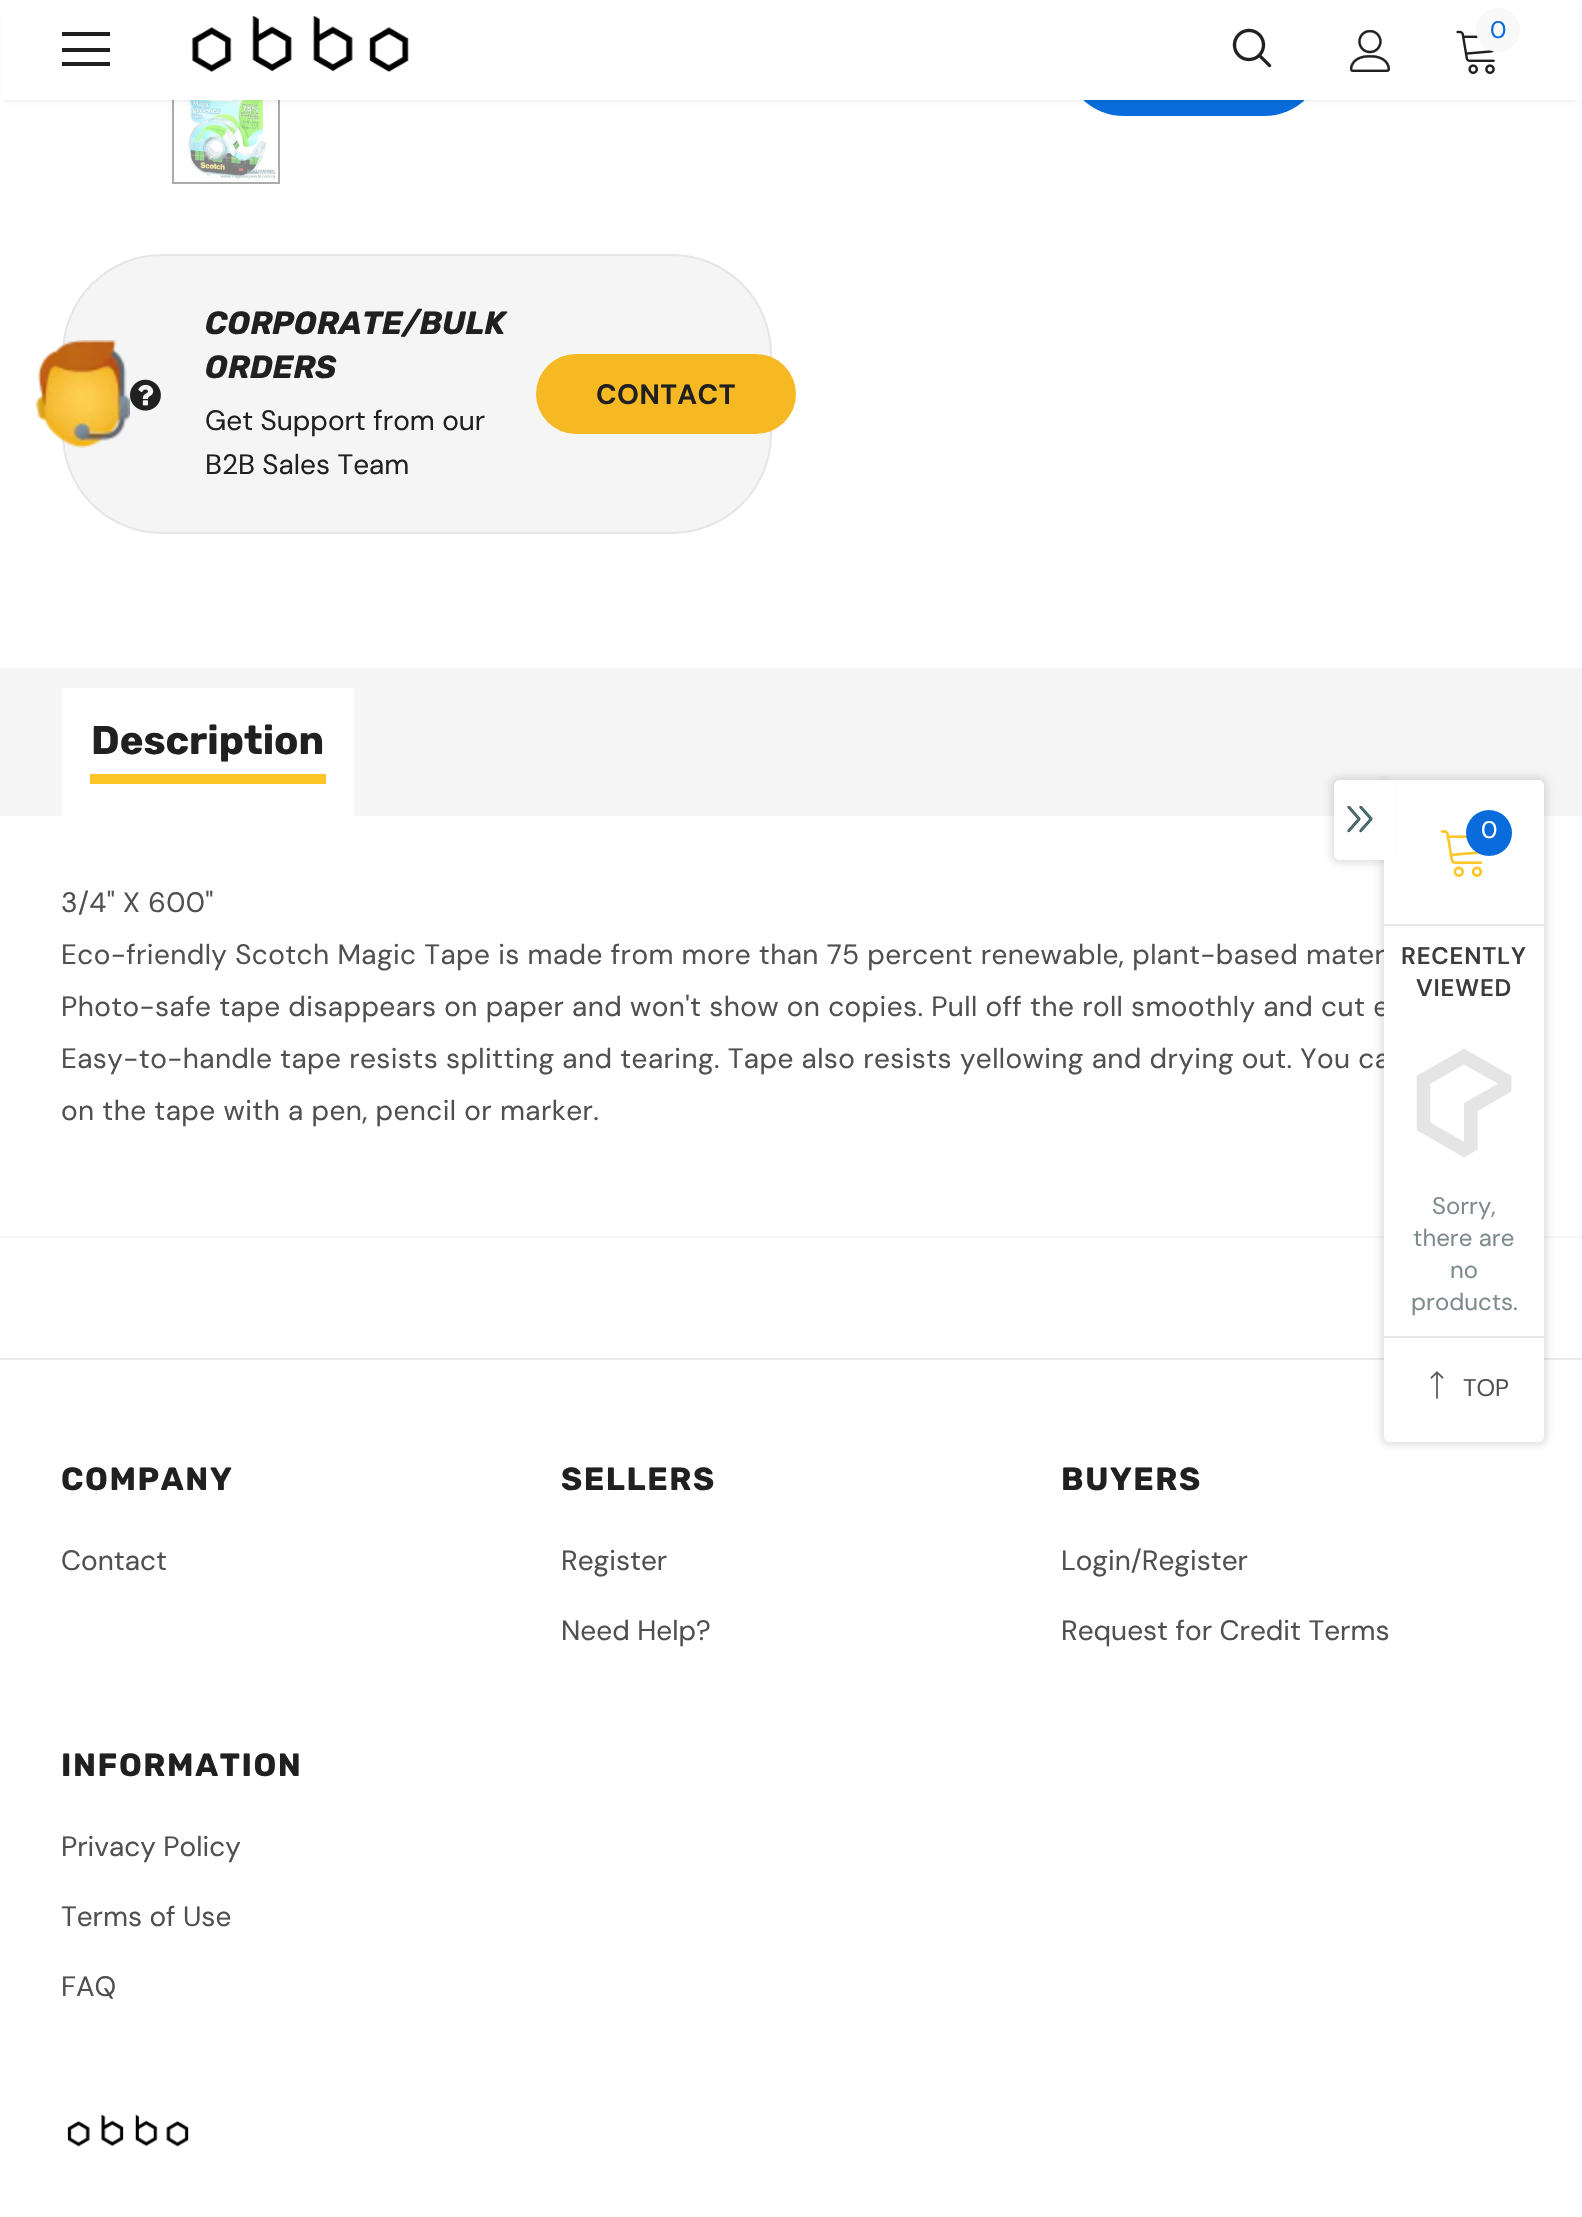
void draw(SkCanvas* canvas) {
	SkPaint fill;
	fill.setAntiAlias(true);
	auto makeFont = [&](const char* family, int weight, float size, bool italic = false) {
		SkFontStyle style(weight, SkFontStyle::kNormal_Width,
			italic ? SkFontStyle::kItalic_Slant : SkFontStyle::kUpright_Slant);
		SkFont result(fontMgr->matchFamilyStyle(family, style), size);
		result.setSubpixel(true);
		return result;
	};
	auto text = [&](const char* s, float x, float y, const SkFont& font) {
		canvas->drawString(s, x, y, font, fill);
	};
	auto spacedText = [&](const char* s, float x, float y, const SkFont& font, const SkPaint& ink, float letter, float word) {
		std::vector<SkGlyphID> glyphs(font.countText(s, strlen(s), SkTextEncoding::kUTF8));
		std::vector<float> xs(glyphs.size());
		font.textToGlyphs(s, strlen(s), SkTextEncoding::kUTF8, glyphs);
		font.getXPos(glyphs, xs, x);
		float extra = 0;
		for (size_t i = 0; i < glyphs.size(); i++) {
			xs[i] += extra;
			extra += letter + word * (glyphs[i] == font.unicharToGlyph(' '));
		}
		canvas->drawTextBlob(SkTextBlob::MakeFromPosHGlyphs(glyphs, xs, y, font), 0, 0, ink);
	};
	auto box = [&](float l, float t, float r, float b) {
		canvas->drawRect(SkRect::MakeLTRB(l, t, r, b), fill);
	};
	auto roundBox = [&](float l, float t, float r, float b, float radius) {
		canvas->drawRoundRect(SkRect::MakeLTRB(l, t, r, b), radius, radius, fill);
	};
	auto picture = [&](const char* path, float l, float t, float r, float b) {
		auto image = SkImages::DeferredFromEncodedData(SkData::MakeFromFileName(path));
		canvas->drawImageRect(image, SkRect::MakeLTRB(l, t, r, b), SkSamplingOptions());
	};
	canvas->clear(0xFFFFFFFF);
	fill.setColor(0xFF086CDC);
	roundBox(1064, -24, 1324, 116, 60);
	fill.setStyle(SkPaint::kStroke_Style);
	fill.setStrokeWidth(2);
	fill.setColor(0xFFABABAB);
	canvas->drawRect(SkRect::MakeLTRB(173, 77, 279, 183), fill);
	picture("image4.png", 187, 100, 276, 182);
	fill.setStyle(SkPaint::kFill_Style);
	fill.setColor(0x1F000000);
	fill.setMaskFilter(SkMaskFilter::MakeBlur(kNormal_SkBlurStyle, 3));
	canvas->drawRect(SkRect::MakeLTRB(6, 12, 1576, 100), fill);
	fill.setMaskFilter(nullptr);
	fill.setColor(0xFFFFFFFF);
	box(2, 0, 1580, 100);
	fill.setColor(0xFF202020);
	box(62, 32, 110, 36);
	box(62, 48, 110, 52);
	box(62, 62, 110, 66);
	picture("image0.png", 191, 15, 409, 73);
	picture("image1.png", 1232, 28, 1272, 68);
	picture("image2.png", 1350, 30, 1391, 72);
	picture("image3.png", 1456, 30, 1495, 74);
	fill.setColor(0xFFF9F9F9);
	canvas->drawCircle(1498, 30, 22, fill);
	fill.setColor(0xFFF5F5F5);
	canvas->drawRoundRect(SkRect::MakeLTRB(63, 255, 771, 533), 99, 99, fill);
	fill.setStyle(SkPaint::kStroke_Style);
	fill.setColor(0xFFE6E6E6);
	canvas->drawRoundRect(SkRect::MakeLTRB(63, 255, 771, 533), 99, 99, fill);
	picture("image5.png", 36, 340, 130, 448);
	picture("image6.png", 130, 379, 161, 411);
	fill.setStyle(SkPaint::kFill_Style);
	fill.setColor(0xFFF6B924);
	roundBox(536, 354, 796, 434, 40);
	fill.setColor(0xFFF5F5F5);
	box(0, 668, 1582, 816);
	fill.setColor(0xFFFFFFFF);
	box(62, 688, 354, 816);
	fill.setColor(0xFFFDC525);
	box(90, 774, 326, 784);
	fill.setColor(0xFFF6F6F6);
	box(0, 1236, 1384, 1238);
	box(1544, 1236, 1582, 1238);
	fill.setColor(0xFFEBEBEB);
	box(0, 1358, 1582, 1360);
	picture("image7.png", 67, 2114, 189, 2147);
	fill.setColor(0x1A000000);
	fill.setMaskFilter(SkMaskFilter::MakeBlur(kNormal_SkBlurStyle, 3));
	canvas->drawRoundRect(SkRect::MakeLTRB(1380, 776, 1548, 1446), 10, 10, fill);
	fill.setMaskFilter(nullptr);
	auto font1 = makeFont("DM Sans", 400, 24);
	fill.setColor(0xFF0A6CDC);
	text("0", 1490, 38, font1);
	auto font2 = makeFont("Rubik", 700, 32, true);
	fill.setColor(0xFF202020);
	text("CORPORATE/BULK", 205, 334, font2);
	text("ORDERS", 205, 378, font2);
	auto font3 = makeFont("DM Sans", 400, 28);
	text("Get Support from our", 205, 430, font3);
	text("B2B Sales Team", 205, 474, font3);
	auto font4 = makeFont("DM Sans", 700, 28);
	spacedText("CONTACT", 596, 404, font4, fill, 0.4f, 0);
	auto font5 = makeFont("Rubik", 700, 40);
	text("Description", 91, 754, font5);
	fill.setColor(0xFF505050);
	spacedText("3/4\" X 600\"", 61, 912, font3, fill, 0.4f, 0);
	spacedText("Eco-friendly Scotch Magic Tape is made from more than 75 percent renewable, plant-based mater", 61, 964, font3, fill, 0.4f, 0);
	spacedText("Photo-safe tape disappears on paper and won't show on copies. Pull off the roll smoothly and cut e", 61, 1016, font3, fill, 0.4f, 0);
	spacedText("Easy-to-handle tape resists splitting and tearing. Tape also resists yellowing and drying out. You ca", 61, 1068, font3, fill, 0.4f, 0);
	spacedText("on the tape with a pen, pencil or marker.", 61, 1120, font3, fill, 0.4f, 0);
	auto font6 = makeFont("Rubik", 700, 32);
	fill.setColor(0xFF202020);
	spacedText("COMPANY", 61, 1490, font6, fill, 1.6f, 0);
	fill.setColor(0xFF505050);
	text("Contact", 61, 1570, font3);
	fill.setColor(0xFF202020);
	spacedText("SELLERS", 561, 1490, font6, fill, 1.6f, 0);
	fill.setColor(0xFF505050);
	text("Register", 561, 1570, font3);
	text("Need Help?", 561, 1640, font3);
	fill.setColor(0xFF202020);
	spacedText("BUYERS", 1061, 1490, font6, fill, 1.6f, 0);
	fill.setColor(0xFF505050);
	text("Login/Register", 1061, 1570, font3);
	text("Request for Credit Terms", 1061, 1640, font3);
	fill.setColor(0xFF202020);
	spacedText("INFORMATION", 61, 1776, font6, fill, 1.6f, 0);
	fill.setColor(0xFF505050);
	text("Privacy Policy", 61, 1856, font3);
	text("Terms of Use", 61, 1926, font3);
	text("FAQ", 61, 1996, font3);
	fill.setColor(0xFFFFFFFF);
	canvas->drawPath(SkPathBuilder().moveTo(1384, 780).lineTo(1538, 780).cubicTo(1541.5f, 780, 1544, 782.5f, 1544, 786).lineTo(1544, 1436).cubicTo(1544, 1439.5f, 1541.5f, 1442, 1538, 1442).lineTo(1390, 1442).cubicTo(1386.5f, 1442, 1384, 1439.5f, 1384, 1436).close().detach(), fill);
	fill.setColor(0x1A000000);
	fill.setMaskFilter(SkMaskFilter::MakeBlur(kNormal_SkBlurStyle, 3));
	canvas->drawRoundRect(SkRect::MakeLTRB(1330, 776, 1390, 864), 10, 10, fill);
	fill.setMaskFilter(nullptr);
	fill.setColor(0xFFFFFFFF);
	canvas->drawPath(SkPathBuilder().moveTo(1340, 780).lineTo(1386, 780).lineTo(1386, 860).lineTo(1340, 860).cubicTo(1336.5f, 860, 1334, 857.5f, 1334, 854).lineTo(1334, 786).cubicTo(1334, 782.5f, 1336.5f, 780, 1340, 780).close().detach(), fill);
	picture("image8.png", 1347, 806, 1373, 833);
	box(1384, 780, 1394, 867);
	fill.setColor(0xFFE7E7E7);
	box(1384, 924, 1544, 926);
	picture("image9.png", 1440, 830, 1483, 877);
	fill.setColor(0xFF0A6CDC);
	canvas->drawCircle(1489, 833, 23, fill);
	fill.setColor(0xFFFFFFFF);
	text("0", 1481, 838, font1);
	auto font7 = makeFont("DM Sans", 600, 24);
	fill.setColor(0xFF3C3C3C);
	spacedText("RECENTLY", 1401, 964, font7, fill, 0.75f, 0);
	spacedText("VIEWED", 1416, 996, font7, fill, 0.75f, 0);
	picture("image10.png", 1416, 1048, 1512, 1158);
	fill.setColor(0xFF7D8B8E);
	text("Sorry,", 1432, 1214, font1);
	text("there are", 1413, 1246, font1);
	text("no", 1450, 1278, font1);
	text("products.", 1411, 1310, font1);
	fill.setColor(0xFFE7E7E7);
	box(1384, 1336, 1544, 1338);
	picture("image11.png", 1430, 1371, 1444, 1399);
	fill.setColor(0xFF505050);
	text("TOP", 1463, 1396, font1);
}
